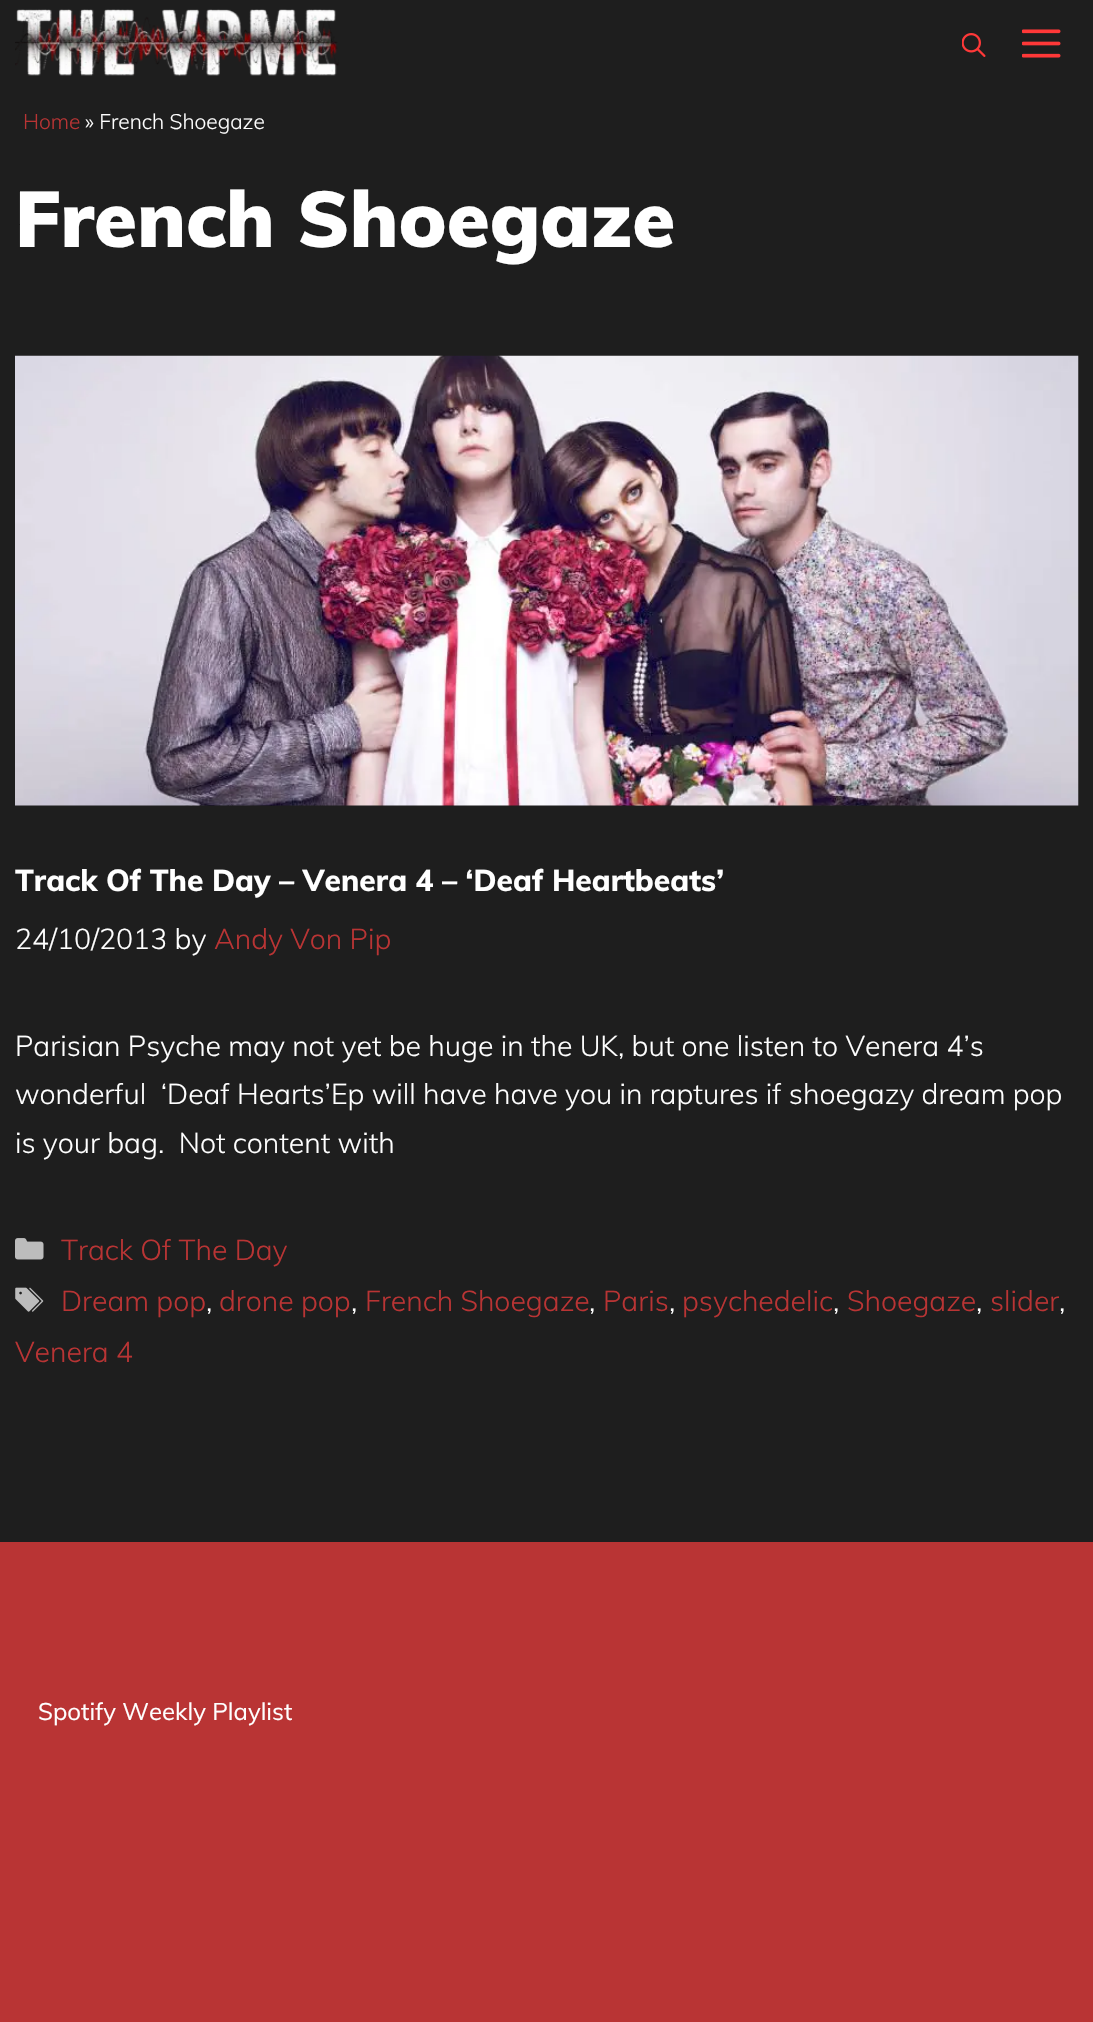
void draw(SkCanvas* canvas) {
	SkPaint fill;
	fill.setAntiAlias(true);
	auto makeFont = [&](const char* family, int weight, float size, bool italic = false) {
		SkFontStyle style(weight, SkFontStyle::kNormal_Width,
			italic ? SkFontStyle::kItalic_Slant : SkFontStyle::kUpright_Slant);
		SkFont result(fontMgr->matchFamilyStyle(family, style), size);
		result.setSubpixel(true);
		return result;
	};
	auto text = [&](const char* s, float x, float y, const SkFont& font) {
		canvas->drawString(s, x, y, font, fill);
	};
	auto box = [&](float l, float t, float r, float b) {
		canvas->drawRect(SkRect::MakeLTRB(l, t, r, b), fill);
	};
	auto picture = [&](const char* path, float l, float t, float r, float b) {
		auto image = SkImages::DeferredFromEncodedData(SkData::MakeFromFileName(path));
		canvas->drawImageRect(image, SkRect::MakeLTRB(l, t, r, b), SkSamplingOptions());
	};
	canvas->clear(0xFF1E1E1E);
	picture("image0.png", 15, 9, 339, 77);
	picture("image1.png", 962, 33, 986, 57);
	picture("image2.png", 1022, 29, 1061, 58);
	picture("image3.png", 15, 355, 1079, 806);
	picture("image4.png", 15, 1238, 44, 1260);
	picture("image5.png", 15, 1287, 44, 1312);
	fill.setColor(0xFFB93434);
	box(0, 1542, 1093, 2022);
	auto font1 = makeFont("Muli", 300, 21);
	text("Home", 23, 129, font1);
	fill.setColor(0xFFFFFFFF);
	text("» French Shoegaze", 85, 129, font1);
	auto font2 = makeFont("Muli", 900, 78);
	text("French Shoegaze", 15, 247, font2);
	auto font3 = makeFont("Muli", 800, 30);
	text("Track Of The Day – Venera 4 – ‘Deaf Heartbeats’", 15, 891, font3);
	auto font4 = makeFont("Muli", 300, 28.5f);
	text("24/10/2013 by", 15, 949, font4);
	fill.setColor(0xFFB93434);
	text("Andy Von Pip", 214, 949, font4);
	fill.setColor(0xFFFFFFFF);
	text("Parisian Psyche may not yet be huge in the UK, but one listen to Venera 4’s", 15, 1056, font4);
	text("wonderful  ‘Deaf Hearts’Ep will have have you in raptures if shoegazy dream pop", 15, 1104, font4);
	text("is your bag.  Not content with", 15, 1153, font4);
	fill.setColor(0xFFB93434);
	text("Track Of The Day", 61, 1260, font4);
	text("Dream pop", 61, 1311, font4);
	fill.setColor(0xFFFFFFFF);
	text(",", 206, 1311, font4);
	fill.setColor(0xFFB93434);
	text("drone pop", 219, 1311, font4);
	fill.setColor(0xFFFFFFFF);
	text(",", 351, 1311, font4);
	fill.setColor(0xFFB93434);
	text("French Shoegaze", 365, 1311, font4);
	fill.setColor(0xFFFFFFFF);
	text(",", 589, 1311, font4);
	fill.setColor(0xFFB93434);
	text("Paris", 603, 1311, font4);
	fill.setColor(0xFFFFFFFF);
	text(",", 669, 1311, font4);
	fill.setColor(0xFFB93434);
	text("psychedelic", 682, 1311, font4);
	fill.setColor(0xFFFFFFFF);
	text(",", 833, 1311, font4);
	fill.setColor(0xFFB93434);
	text("Shoegaze", 847, 1311, font4);
	fill.setColor(0xFFFFFFFF);
	text(",", 976, 1311, font4);
	fill.setColor(0xFFB93434);
	text("slider", 990, 1311, font4);
	fill.setColor(0xFFFFFFFF);
	text(",", 1059, 1311, font4);
	fill.setColor(0xFFB93434);
	text("Venera 4", 15, 1362, font4);
	auto font5 = makeFont("Muli", 400, 24);
	fill.setColor(0xFFFFFFFF);
	text("Spotify Weekly Playlist", 38, 1720, font5);
}
